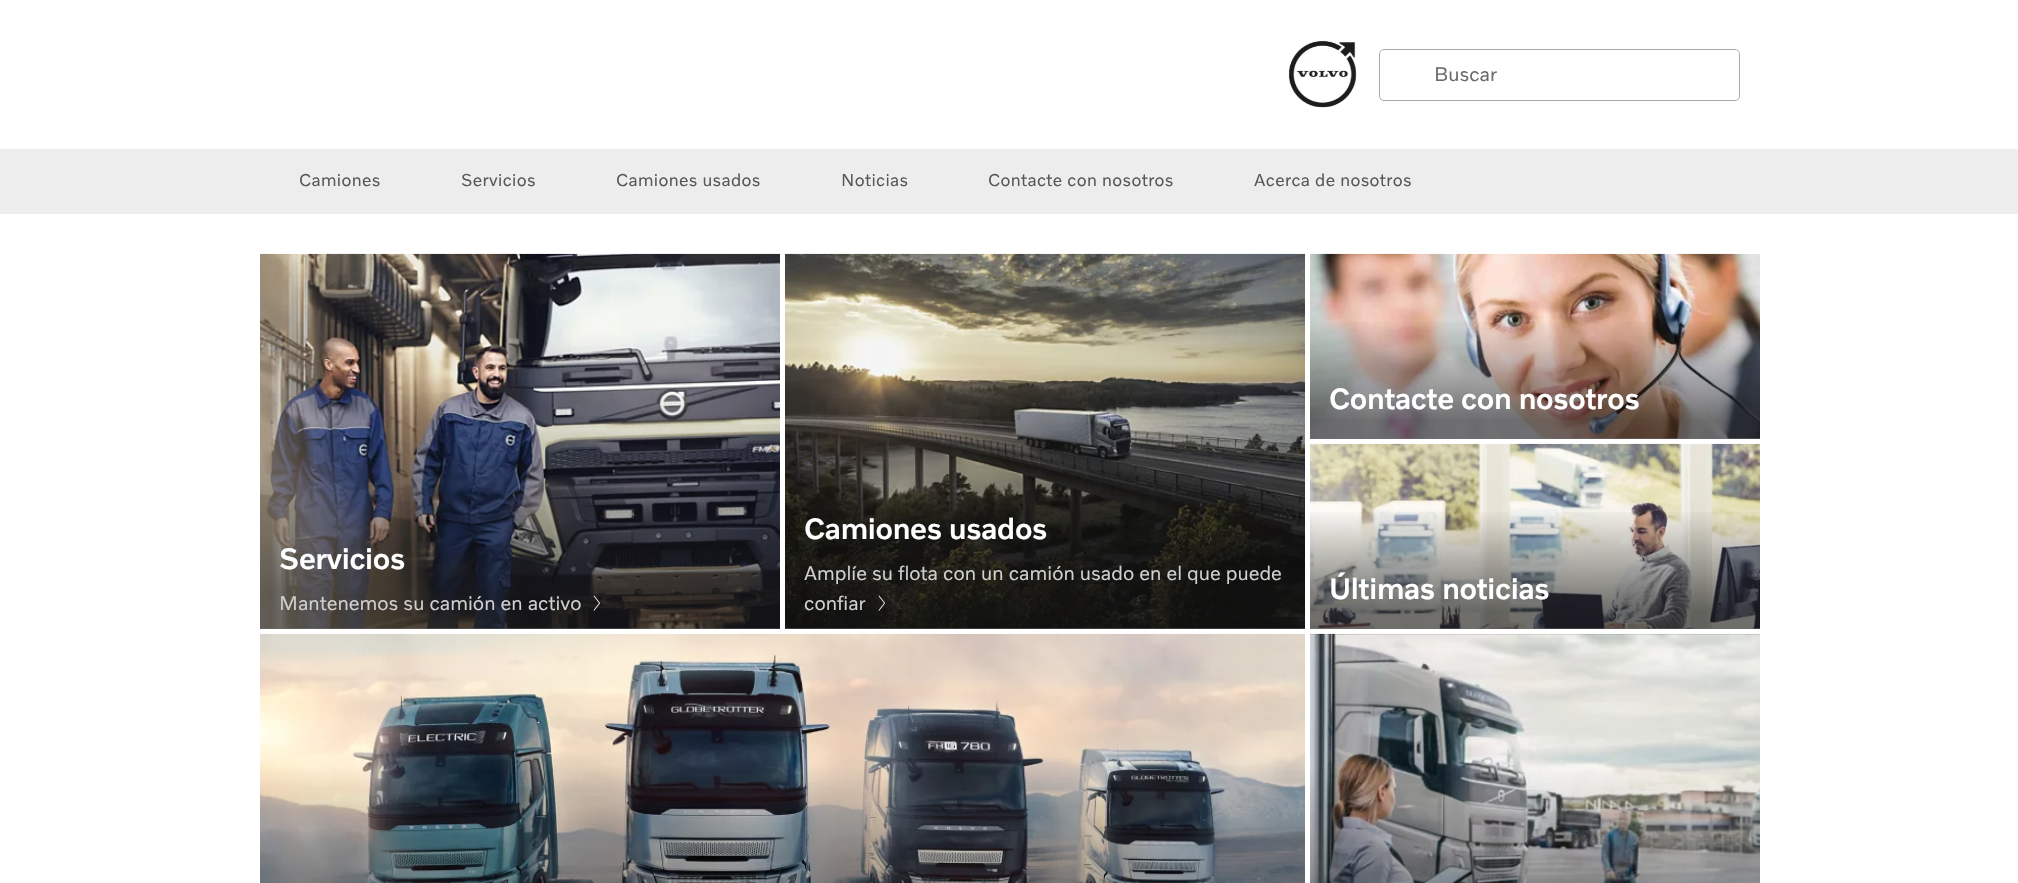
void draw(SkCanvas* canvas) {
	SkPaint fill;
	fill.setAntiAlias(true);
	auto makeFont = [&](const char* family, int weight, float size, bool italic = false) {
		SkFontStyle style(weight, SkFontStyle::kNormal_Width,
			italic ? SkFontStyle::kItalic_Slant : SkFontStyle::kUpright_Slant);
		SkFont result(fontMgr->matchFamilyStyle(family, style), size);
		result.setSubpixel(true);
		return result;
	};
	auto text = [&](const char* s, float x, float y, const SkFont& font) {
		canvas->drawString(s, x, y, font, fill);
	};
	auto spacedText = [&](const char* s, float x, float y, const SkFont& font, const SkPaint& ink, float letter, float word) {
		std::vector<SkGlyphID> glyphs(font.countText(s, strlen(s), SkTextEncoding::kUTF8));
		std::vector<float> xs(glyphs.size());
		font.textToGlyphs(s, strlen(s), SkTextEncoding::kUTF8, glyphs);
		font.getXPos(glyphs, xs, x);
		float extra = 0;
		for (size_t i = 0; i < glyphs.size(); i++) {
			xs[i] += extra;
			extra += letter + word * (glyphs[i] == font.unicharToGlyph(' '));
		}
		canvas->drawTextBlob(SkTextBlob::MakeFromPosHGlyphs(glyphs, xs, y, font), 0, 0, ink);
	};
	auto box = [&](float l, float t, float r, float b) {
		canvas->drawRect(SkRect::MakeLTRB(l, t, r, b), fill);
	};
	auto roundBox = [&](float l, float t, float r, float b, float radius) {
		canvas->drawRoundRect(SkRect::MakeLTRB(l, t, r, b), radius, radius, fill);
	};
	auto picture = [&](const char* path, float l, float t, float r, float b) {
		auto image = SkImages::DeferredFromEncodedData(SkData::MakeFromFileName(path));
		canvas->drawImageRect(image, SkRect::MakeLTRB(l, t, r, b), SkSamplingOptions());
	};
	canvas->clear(0xFFFFFFFF);
	picture("image0.png", 1288, 40, 1357, 108);
	fill.setStyle(SkPaint::kStroke_Style);
	fill.setStrokeWidth(1);
	fill.setColor(0xFFA9A9A9);
	canvas->drawRoundRect(SkRect::MakeLTRB(1379.5f, 49.5f, 1739.5f, 100.5f), 4.5f, 4.5f, fill);
	fill.setStyle(SkPaint::kFill_Style);
	fill.setColor(0xFFFFFFFF);
	roundBox(1380, 50, 1739, 100, 5);
	fill.setColor(0xFFEDEDED);
	box(0, 149, 2018, 214);
	picture("image1.png", 1310, 253, 1760, 439);
	{
		const SkColor colors[] = {0x99141414, 0x00141414};
		const float stops[] = {0.1f, 0.65f};
		const SkPoint ends[] = {{1535, 439}, {1535, 254}};
		fill.setShader(SkGradientShader::MakeLinear(ends, colors, stops, 2, SkTileMode::kClamp));
		fill.setAlpha(255);
	}
	box(1310, 322, 1760, 439);
	picture("image2.png", 260, 253, 780, 629);
	{
		const SkColor colors[] = {0x99141414, 0x00141414};
		const float stops[] = {0.1f, 0.65f};
		const SkPoint ends[] = {{520, 629}, {520, 254}};
		fill.setShader(SkGradientShader::MakeLinear(ends, colors, stops, 2, SkTileMode::kClamp));
		fill.setAlpha(255);
	}
	box(260, 393, 780, 629);
	picture("image3.png", 593, 595, 600, 611);
	picture("image4.png", 785, 253, 1305, 629);
	{
		const SkColor colors[] = {0x99141414, 0x00141414};
		const float stops[] = {0.1f, 0.65f};
		const SkPoint ends[] = {{1045, 629}, {1045, 254}};
		fill.setShader(SkGradientShader::MakeLinear(ends, colors, stops, 2, SkTileMode::kClamp));
		fill.setAlpha(255);
	}
	box(785, 393, 1305, 629);
	picture("image5.png", 878, 595, 885, 611);
	picture("image6.png", 1310, 443, 1760, 629);
	{
		const SkColor colors[] = {0x99141414, 0x00141414};
		const float stops[] = {0.1f, 0.65f};
		const SkPoint ends[] = {{1535, 629}, {1535, 444}};
		fill.setShader(SkGradientShader::MakeLinear(ends, colors, stops, 2, SkTileMode::kClamp));
		fill.setAlpha(255);
	}
	box(1310, 512, 1760, 629);
	picture("image7.png", 260, 633, 1305, 883);
	picture("image8.png", 1310, 633, 1760, 883);
	auto font1 = makeFont("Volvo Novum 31", 400, 20);
	fill.setShader(nullptr);
	fill.setColor(0xFF6B6B6B);
	text("Buscar", 1434, 81, font1);
	auto font2 = makeFont("Volvo Novum 31", 400, 17.5f);
	fill.setColor(0xFF575757);
	spacedText("Camiones", 299, 186, font2, fill, 0.35f, 0);
	spacedText("Servicios", 461, 186, font2, fill, 0.35f, 0);
	spacedText("Camiones usados", 616, 186, font2, fill, 0.35f, 0);
	spacedText("Noticias", 841, 186, font2, fill, 0.35f, 0);
	spacedText("Contacte con nosotros", 988, 186, font2, fill, 0.35f, 0);
	spacedText("Acerca de nosotros", 1254, 186, font2, fill, 0.35f, 0);
	auto font3 = makeFont("Volvo Novum 31", 700, 30);
	fill.setColor(0xFFFFFFFF);
	spacedText("Contacte con nosotros", 1329, 409, font3, fill, -0.3f, 0);
	spacedText("Servicios", 279, 569, font3, fill, -0.3f, 0);
	fill.setColor(0xFFD0D0D0);
	text("Mantenemos su camión en activo", 279, 610, font1);
	fill.setColor(0xFFFFFFFF);
	spacedText("Camiones usados", 804, 539, font3, fill, -0.3f, 0);
	fill.setColor(0xFFD0D0D0);
	text("Amplíe su flota con un camión usado en el que puede", 804, 580, font1);
	text("confiar", 804, 610, font1);
	fill.setColor(0xFFFFFFFF);
	spacedText("Últimas noticias", 1329, 599, font3, fill, -0.3f, 0);
}
